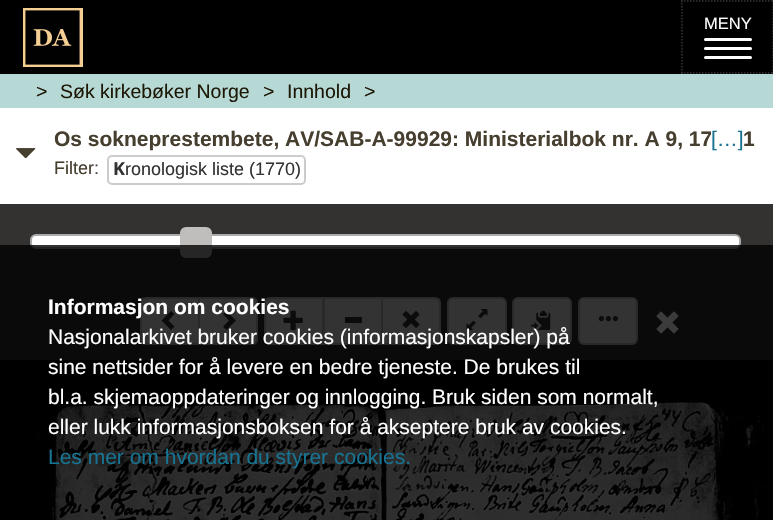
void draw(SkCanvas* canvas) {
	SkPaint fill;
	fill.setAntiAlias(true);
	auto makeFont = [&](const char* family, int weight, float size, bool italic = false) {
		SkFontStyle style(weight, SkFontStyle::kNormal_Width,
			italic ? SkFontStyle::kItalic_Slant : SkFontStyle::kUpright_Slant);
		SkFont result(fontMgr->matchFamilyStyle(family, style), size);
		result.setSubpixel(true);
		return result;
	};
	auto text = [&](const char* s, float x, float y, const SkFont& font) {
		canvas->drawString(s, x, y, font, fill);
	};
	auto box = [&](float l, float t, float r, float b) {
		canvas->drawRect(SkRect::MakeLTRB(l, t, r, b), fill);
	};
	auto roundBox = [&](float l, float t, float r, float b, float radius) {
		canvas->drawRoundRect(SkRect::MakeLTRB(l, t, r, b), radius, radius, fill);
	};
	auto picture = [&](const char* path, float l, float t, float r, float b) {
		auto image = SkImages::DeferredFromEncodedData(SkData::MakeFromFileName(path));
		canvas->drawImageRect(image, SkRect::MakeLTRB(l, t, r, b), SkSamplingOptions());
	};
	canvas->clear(0xFFFFFFFF);
	fill.setColor(0xFF000000);
	box(0, 0, 773, 74);
	picture("image0.png", 23, 8, 83, 67);
	fill.setStyle(SkPaint::kStroke_Style);
	fill.setStrokeWidth(1.5f);
	fill.setColor(0xFF333333);
	fill.setPathEffect(SkDashPathEffect::Make({{1.5f, 1.5f}}, 0));
	canvas->drawPath(SkPathBuilder().moveTo(681, 1).lineTo(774, 1).detach(), fill);
	fill.setPathEffect(nullptr);
	fill.setPathEffect(SkDashPathEffect::Make({{1.5f, 1.5f}}, 0));
	canvas->drawPath(SkPathBuilder().moveTo(773, 0).lineTo(773, 73.5f).detach(), fill);
	fill.setPathEffect(nullptr);
	fill.setPathEffect(SkDashPathEffect::Make({{1.5f, 1.5f}}, 0));
	canvas->drawPath(SkPathBuilder().moveTo(681, 73).lineTo(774, 73).detach(), fill);
	fill.setPathEffect(nullptr);
	fill.setPathEffect(SkDashPathEffect::Make({{1.5f, 1.5f}}, 0));
	canvas->drawPath(SkPathBuilder().moveTo(682, 0).lineTo(682, 73.5f).detach(), fill);
	fill.setPathEffect(nullptr);
	fill.setStyle(SkPaint::kFill_Style);
	fill.setColor(0xFFFFFFFF);
	roundBox(704, 38, 752, 41, 1.5f);
	roundBox(704, 47, 752, 50, 1.5f);
	roundBox(704, 56, 752, 59, 1.5f);
	fill.setColor(0xFFB6D9D6);
	box(0, 74, 773, 108);
	picture("image1.png", 16, 148, 36, 159);
	fill.setStyle(SkPaint::kStroke_Style);
	fill.setStrokeWidth(2);
	fill.setColor(0xFFCCCCCC);
	canvas->drawRoundRect(SkRect::MakeLTRB(108, 156, 305, 184), 4, 4, fill);
	fill.setStyle(SkPaint::kFill_Style);
	fill.setColor(0xFF333231);
	box(0, 204, 773, 360);
	fill.setColor(0xFFFFFFFF);
	canvas->drawRoundRect(SkRect::MakeLTRB(31, 235, 740, 248), 5, 5, fill);
	fill.setStyle(SkPaint::kStroke_Style);
	fill.setColor(0xFFAAAAAA);
	canvas->drawRoundRect(SkRect::MakeLTRB(31, 235, 740, 248), 5, 5, fill);
	fill.setStyle(SkPaint::kFill_Style);
	fill.setColor(0xFFBFBEBD);
	canvas->drawRoundRect(SkRect::MakeLTRB(181, 228, 211, 257), 5, 5, fill);
	fill.setStyle(SkPaint::kStroke_Style);
	canvas->drawRoundRect(SkRect::MakeLTRB(181, 228, 211, 257), 5, 5, fill);
	fill.setStyle(SkPaint::kFill_Style);
	fill.setColor(0xFFFFFFFF);
	canvas->drawPath(SkPathBuilder().moveTo(146, 298).lineTo(199, 298).lineTo(199, 344).lineTo(146, 344).cubicTo(143, 344, 141, 342, 141, 339).lineTo(141, 303).cubicTo(141, 300, 143, 298, 146, 298).close().detach(), fill);
	fill.setStyle(SkPaint::kStroke_Style);
	fill.setColor(0xFFCCCCCC);
	canvas->drawPath(SkPathBuilder().moveTo(146, 298).lineTo(199, 298).lineTo(199, 344).lineTo(146, 344).cubicTo(143, 344, 141, 342, 141, 339).lineTo(141, 303).cubicTo(141, 300, 143, 298, 146, 298).close().detach(), fill);
	fill.setStyle(SkPaint::kFill_Style);
	fill.setColor(0xFF333333);
	canvas->drawPath(SkPathBuilder().moveTo(174.5f, 314).lineTo(168.5f, 320.5f).lineTo(174.5f, 326.5f).lineTo(171, 330).lineTo(161.5f, 320.5f).lineTo(171, 311).close().detach(), fill);
	fill.setColor(0xFFFFFFFF);
	canvas->drawPath(SkPathBuilder().moveTo(199, 298).lineTo(252, 298).cubicTo(255, 298, 257, 300, 257, 303).lineTo(257, 339).cubicTo(257, 342, 255, 344, 252, 344).lineTo(199, 344).close().detach(), fill);
	fill.setStyle(SkPaint::kStroke_Style);
	fill.setColor(0xFFCCCCCC);
	canvas->drawPath(SkPathBuilder().moveTo(199, 298).lineTo(252, 298).cubicTo(255, 298, 257, 300, 257, 303).lineTo(257, 339).cubicTo(257, 342, 255, 344, 252, 344).lineTo(199, 344).close().detach(), fill);
	fill.setStyle(SkPaint::kFill_Style);
	fill.setColor(0xFF333333);
	canvas->drawPath(SkPathBuilder().moveTo(236, 320.5f).lineTo(226.5f, 330).lineTo(223, 326.5f).lineTo(229, 320.5f).lineTo(223, 314).lineTo(226.5f, 311).close().detach(), fill);
	fill.setColor(0xFFFFFFFF);
	canvas->drawPath(SkPathBuilder().moveTo(270, 298).lineTo(323, 298).lineTo(323, 344).lineTo(270, 344).cubicTo(267, 344, 265, 342, 265, 339).lineTo(265, 303).cubicTo(265, 300, 267, 298, 270, 298).close().detach(), fill);
	fill.setStyle(SkPaint::kStroke_Style);
	fill.setColor(0xFFCCCCCC);
	canvas->drawPath(SkPathBuilder().moveTo(270, 298).lineTo(323, 298).lineTo(323, 344).lineTo(270, 344).cubicTo(267, 344, 265, 342, 265, 339).lineTo(265, 303).cubicTo(265, 300, 267, 298, 270, 298).close().detach(), fill);
	picture("image2.png", 283, 310, 303, 330);
	fill.setStyle(SkPaint::kFill_Style);
	fill.setColor(0xFFFFFFFF);
	canvas->drawRect(SkRect::MakeLTRB(324, 298, 382, 344), fill);
	fill.setStyle(SkPaint::kStroke_Style);
	fill.setColor(0xFFCCCCCC);
	canvas->drawRect(SkRect::MakeLTRB(324, 298, 382, 344), fill);
	fill.setStyle(SkPaint::kFill_Style);
	fill.setColor(0xFF333333);
	box(345, 317, 362, 323);
	fill.setColor(0xFFFFFFFF);
	canvas->drawPath(SkPathBuilder().moveTo(382, 298).lineTo(435, 298).cubicTo(438, 298, 440, 300, 440, 303).lineTo(440, 339).cubicTo(440, 342, 438, 344, 435, 344).lineTo(382, 344).close().detach(), fill);
	fill.setStyle(SkPaint::kStroke_Style);
	fill.setColor(0xFFCCCCCC);
	canvas->drawPath(SkPathBuilder().moveTo(382, 298).lineTo(435, 298).cubicTo(438, 298, 440, 300, 440, 303).lineTo(440, 339).cubicTo(440, 342, 438, 344, 435, 344).lineTo(382, 344).close().detach(), fill);
	picture("image3.png", 402, 311, 420, 328);
	fill.setStyle(SkPaint::kFill_Style);
	fill.setColor(0xFFFFFFFF);
	canvas->drawRoundRect(SkRect::MakeLTRB(448, 298, 506, 344), 5, 5, fill);
	fill.setStyle(SkPaint::kStroke_Style);
	fill.setColor(0xFFCCCCCC);
	canvas->drawRoundRect(SkRect::MakeLTRB(448, 298, 506, 344), 5, 5, fill);
	picture("image4.png", 466, 309, 488, 330);
	fill.setStyle(SkPaint::kFill_Style);
	fill.setColor(0xFFFFFFFF);
	canvas->drawRoundRect(SkRect::MakeLTRB(513, 298, 571, 344), 5, 5, fill);
	fill.setStyle(SkPaint::kStroke_Style);
	fill.setColor(0xFFCCCCCC);
	canvas->drawRoundRect(SkRect::MakeLTRB(513, 298, 571, 344), 5, 5, fill);
	picture("image5.png", 531, 310, 551, 330);
	fill.setStyle(SkPaint::kFill_Style);
	fill.setColor(0xFFFFFFFF);
	canvas->drawRoundRect(SkRect::MakeLTRB(579, 298, 637, 344), 5, 5, fill);
	fill.setStyle(SkPaint::kStroke_Style);
	fill.setColor(0xFFCCCCCC);
	canvas->drawRoundRect(SkRect::MakeLTRB(579, 298, 637, 344), 5, 5, fill);
	picture("image6.png", 598, 316, 618, 322);
	picture("image7.png", 0, 360, 773, 520);
	fill.setStyle(SkPaint::kFill_Style);
	fill.setColor(0xCC000000);
	box(0, 245, 773, 520);
	picture("image8.png", 656, 311, 679, 334);
	auto font1 = makeFont("Liberation Sans", 400, 16.5f);
	fill.setColor(0xFFFFFFFF);
	text("MENY", 704, 29, font1);
	auto font2 = makeFont("Liberation Sans", 400, 19.5f);
	fill.setColor(0xFF1D1705);
	text(">", 36, 98, font2);
	text("Søk kirkebøker Norge", 60, 98, font2);
	text(">", 263, 98, font2);
	text("Innhold", 287, 98, font2);
	text(">", 364, 98, font2);
	auto font3 = makeFont("Liberation Sans", 700, 21);
	fill.setColor(0xFF463E2F);
	text("Os sokneprestembete, AV/SAB-A-99929: Ministerialbok nr. A 9, 17", 54, 146, font3);
	text("1", 743, 146, font3);
	fill.setColor(0xFFFFFFFF);
	box(711, 131, 744, 146);
	auto font4 = makeFont("Liberation Sans", 400, 21);
	fill.setColor(0xFF177391);
	text("[…]", 711, 146, font4);
	auto font5 = makeFont("Liberation Sans", 400, 18);
	fill.setColor(0xFF463E2F);
	text("Filter:", 54, 174, font5);
	auto font6 = makeFont("Noto Sans", 700, 18);
	fill.setColor(0xFF333333);
	text("K", 113, 175, font6);
	text("ronologisk liste (1770)", 125, 175, font5);
	fill.setColor(0xFFFFFFFF);
	text("Informasjon om cookies", 48, 314, font3);
	text("Nasjonalarkivet bruker cookies (informasjonskapsler) på", 48, 344, font4);
	text("sine nettsider for å levere en bedre tjeneste. De brukes til", 48, 374, font4);
	text("bl.a. skjemaoppdateringer og innlogging. Bruk siden som normalt,", 48, 404, font4);
	text("eller lukk informasjonsboksen for å akseptere bruk av cookies.", 48, 434, font4);
	fill.setColor(0xFF177391);
	text("Les mer om hvordan du styrer cookies.", 48, 464, font4);
}
